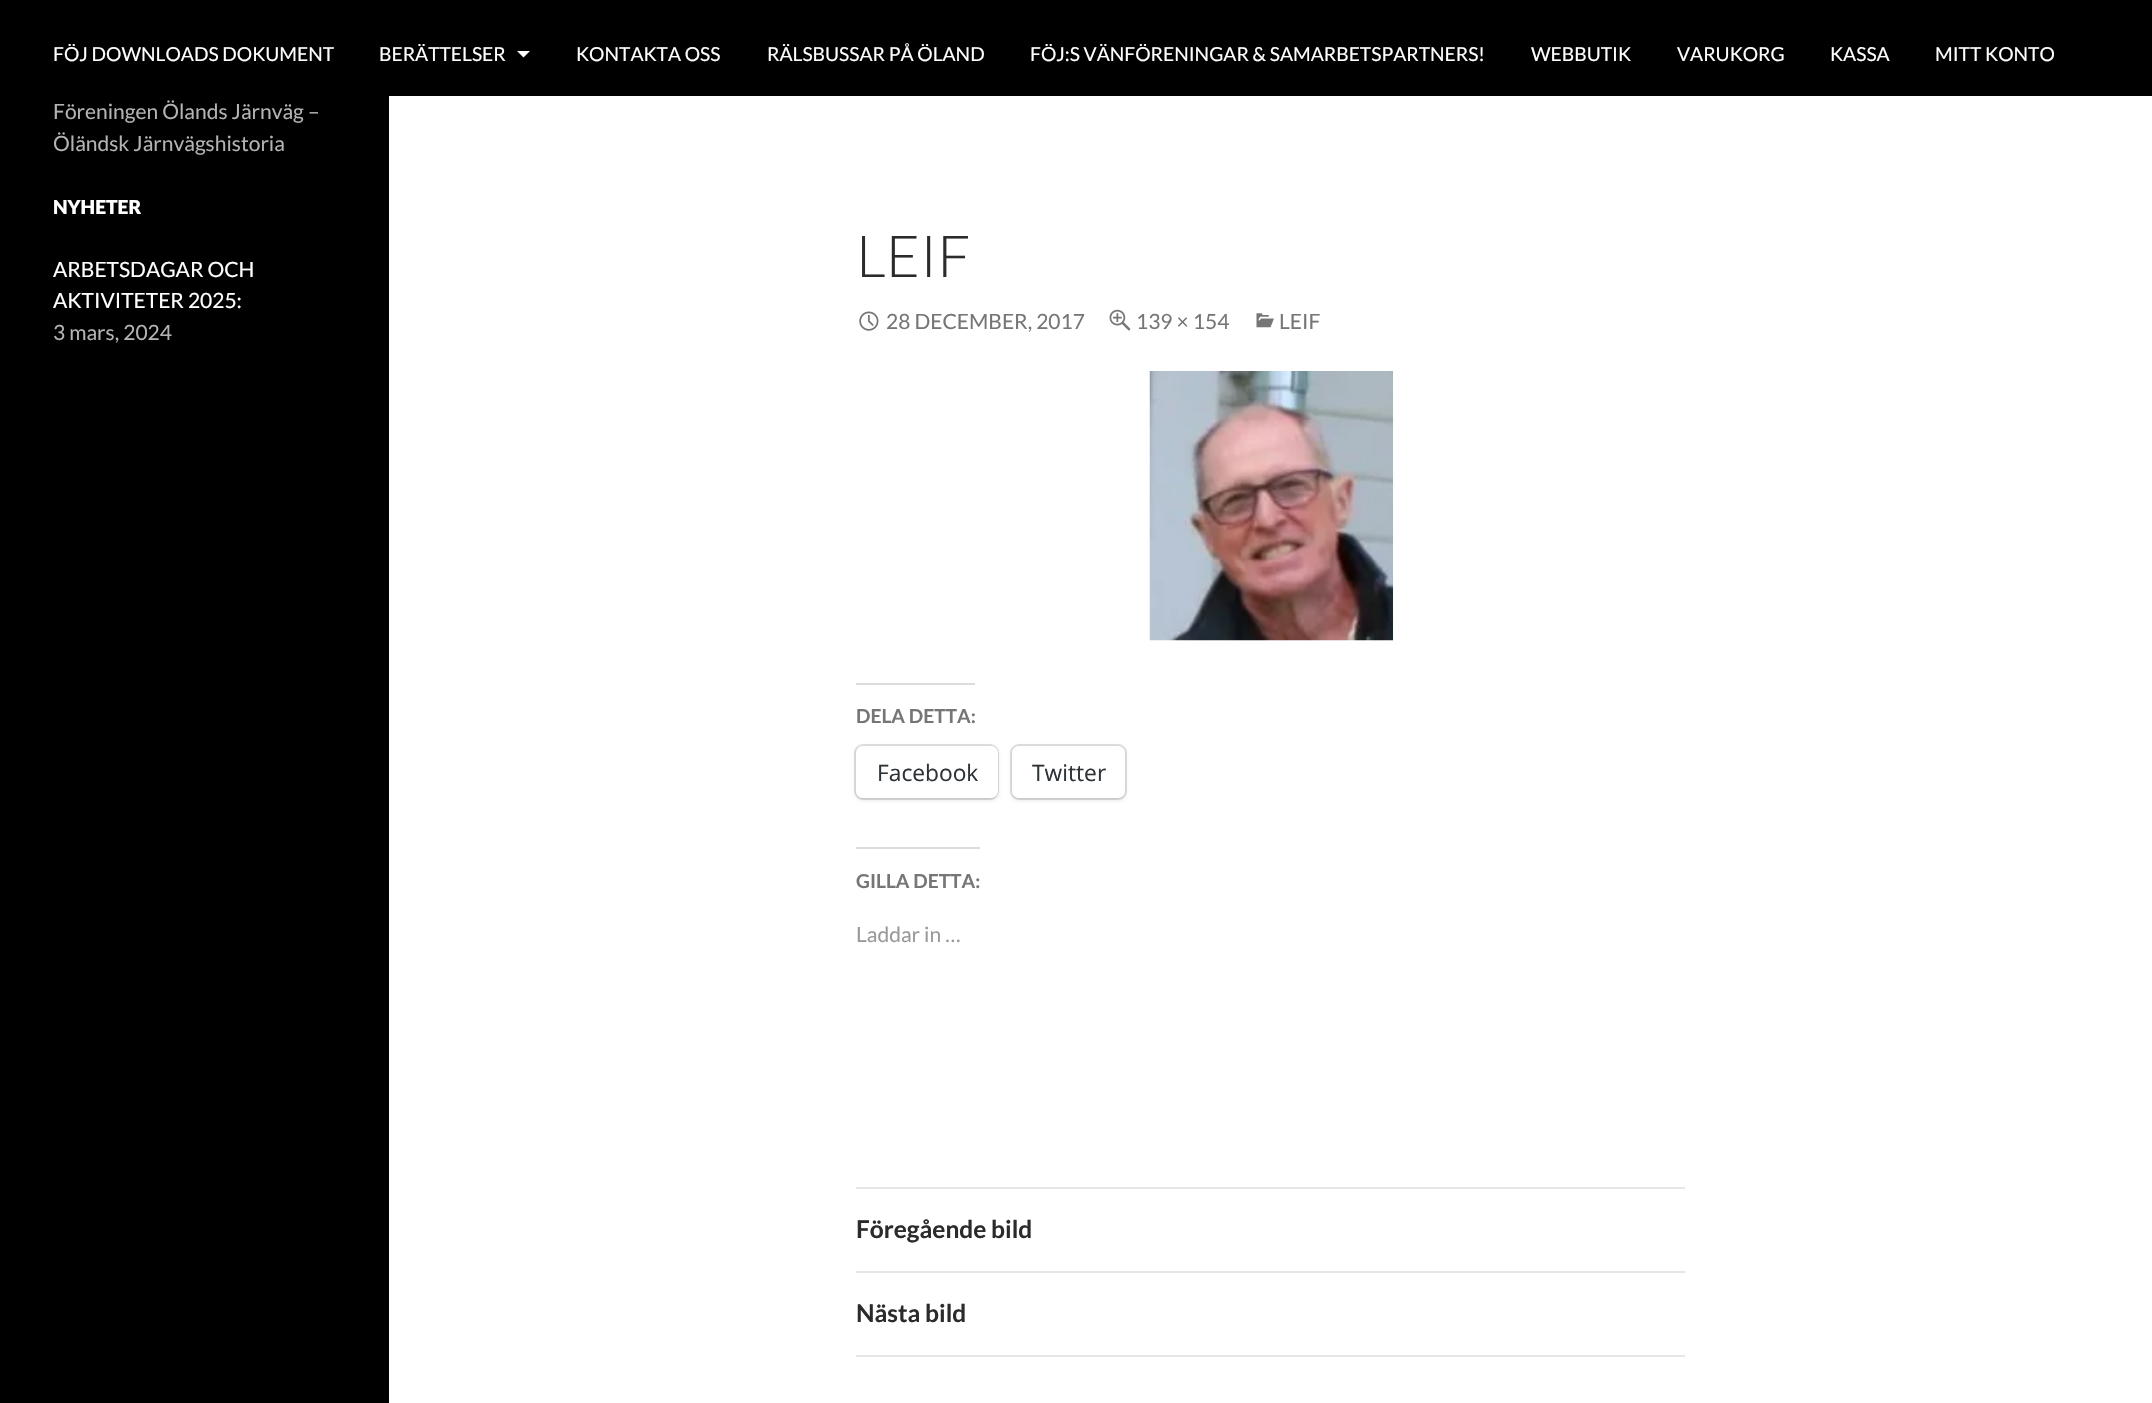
void draw(SkCanvas* canvas) {
	SkPaint fill;
	fill.setAntiAlias(true);
	auto makeFont = [&](const char* family, int weight, float size, bool italic = false) {
		SkFontStyle style(weight, SkFontStyle::kNormal_Width,
			italic ? SkFontStyle::kItalic_Slant : SkFontStyle::kUpright_Slant);
		SkFont result(fontMgr->matchFamilyStyle(family, style), size);
		result.setSubpixel(true);
		return result;
	};
	auto text = [&](const char* s, float x, float y, const SkFont& font) {
		canvas->drawString(s, x, y, font, fill);
	};
	auto box = [&](float l, float t, float r, float b) {
		canvas->drawRect(SkRect::MakeLTRB(l, t, r, b), fill);
	};
	auto roundBox = [&](float l, float t, float r, float b, float radius) {
		canvas->drawRoundRect(SkRect::MakeLTRB(l, t, r, b), radius, radius, fill);
	};
	auto picture = [&](const char* path, float l, float t, float r, float b) {
		auto image = SkImages::DeferredFromEncodedData(SkData::MakeFromFileName(path));
		canvas->drawImageRect(image, SkRect::MakeLTRB(l, t, r, b), SkSamplingOptions());
	};
	canvas->clear(0xFFFFFFFF);
	fill.setColor(0xFF000000);
	box(0, 0, 2152, 96);
	fill.setColor(0xFFFFFFFF);
	canvas->drawPath(SkPathBuilder().moveTo(517, 51).lineTo(530, 51).lineTo(523.5f, 57.5f).close().detach(), fill);
	fill.setColor(0xFF000000);
	box(0, 96, 389, 1403);
	picture("image0.png", 859, 311, 879, 331);
	picture("image1.png", 1109, 309, 1131, 331);
	picture("image2.png", 1256, 313, 1274, 328);
	picture("image3.png", 1149, 371, 1393, 641);
	fill.setColor(0xFFDCDCDE);
	box(856, 683, 975, 685);
	fill.setStyle(SkPaint::kStroke_Style);
	fill.setStrokeWidth(2);
	fill.setColor(0xFFE0E0E0);
	canvas->drawRoundRect(SkRect::MakeLTRB(855, 745, 998, 799), 8, 8, fill);
	fill.setStyle(SkPaint::kFill_Style);
	fill.setColor(0x1F000000);
	fill.setMaskFilter(SkMaskFilter::MakeBlur(kNormal_SkBlurStyle, 2));
	canvas->drawRoundRect(SkRect::MakeLTRB(856, 747, 998, 800), 7, 7, fill);
	fill.setMaskFilter(nullptr);
	fill.setColor(0xFFFFFFFF);
	roundBox(856, 746, 998, 798, 7);
	fill.setStyle(SkPaint::kStroke_Style);
	fill.setColor(0xFFE0E0E0);
	canvas->drawRoundRect(SkRect::MakeLTRB(1011, 745, 1126, 799), 8, 8, fill);
	fill.setStyle(SkPaint::kFill_Style);
	fill.setColor(0x1F000000);
	fill.setMaskFilter(SkMaskFilter::MakeBlur(kNormal_SkBlurStyle, 2));
	canvas->drawRoundRect(SkRect::MakeLTRB(1012, 747, 1125, 800), 7, 7, fill);
	fill.setMaskFilter(nullptr);
	fill.setColor(0xFFFFFFFF);
	roundBox(1012, 746, 1125, 798, 7);
	fill.setColor(0xFFDCDCDE);
	box(856, 847, 980, 849);
	fill.setColor(0xFFE6E6E6);
	box(856, 1187, 1685, 1189);
	box(856, 1271, 1685, 1273);
	box(856, 1355, 1685, 1357);
	auto font1 = makeFont("Lato", 400, 19.25f);
	fill.setColor(0xFFFFFFFF);
	text("FÖJ DOWNLOADS DOKUMENT", 53, 61, font1);
	text("BERÄTTELSER", 379, 61, font1);
	text("KONTAKTA OSS", 576, 61, font1);
	text("RÄLSBUSSAR PÅ ÖLAND", 767, 61, font1);
	text("FÖJ:S VÄNFÖRENINGAR & SAMARBETSPARTNERS!", 1030, 61, font1);
	text("WEBBUTIK", 1531, 61, font1);
	text("VARUKORG", 1677, 61, font1);
	text("KASSA", 1830, 61, font1);
	text("MITT KONTO", 1935, 61, font1);
	auto font2 = makeFont("Lato", 400, 21);
	fill.setColor(0xFFB3B3B3);
	text("Föreningen Ölands Järnväg –", 53, 119, font2);
	text("Öländsk Järnvägshistoria", 53, 151, font2);
	auto font3 = makeFont("Lato", 900, 19.25f);
	fill.setColor(0xFFFFFFFF);
	text("NYHETER", 53, 214, font3);
	text("ARBETSDAGAR OCH", 53, 277, font2);
	text("AKTIVITETER 2025:", 53, 308, font2);
	fill.setColor(0xFFB3B3B3);
	text("3 mars, 2024", 53, 340, font2);
	auto font4 = makeFont("Lato", 300, 58);
	fill.setColor(0xFF2B2B2B);
	text("LEIF", 856, 277, font4);
	fill.setColor(0xFF767676);
	text("28 DECEMBER, 2017", 886, 329, font2);
	text("139 × 154", 1136, 329, font2);
	text("LEIF", 1279, 329, font2);
	auto font5 = makeFont("Lato", 700, 19.25f);
	text("DELA DETTA:", 856, 723, font5);
	auto font6 = makeFont("Open Sans", 400, 22.75f);
	fill.setColor(0xFF2C3338);
	text("Facebook", 877, 781, font6);
	text("Twitter", 1032, 781, font6);
	fill.setColor(0xFF767676);
	text("GILLA DETTA:", 856, 888, font5);
	fill.setColor(0xFF999999);
	text("Laddar in …", 856, 942, font2);
	auto font7 = makeFont("Lato", 700, 24.5f);
	fill.setColor(0xFF2B2B2B);
	text("Föregående bild", 856, 1238, font7);
	text("Nästa bild", 856, 1322, font7);
}
